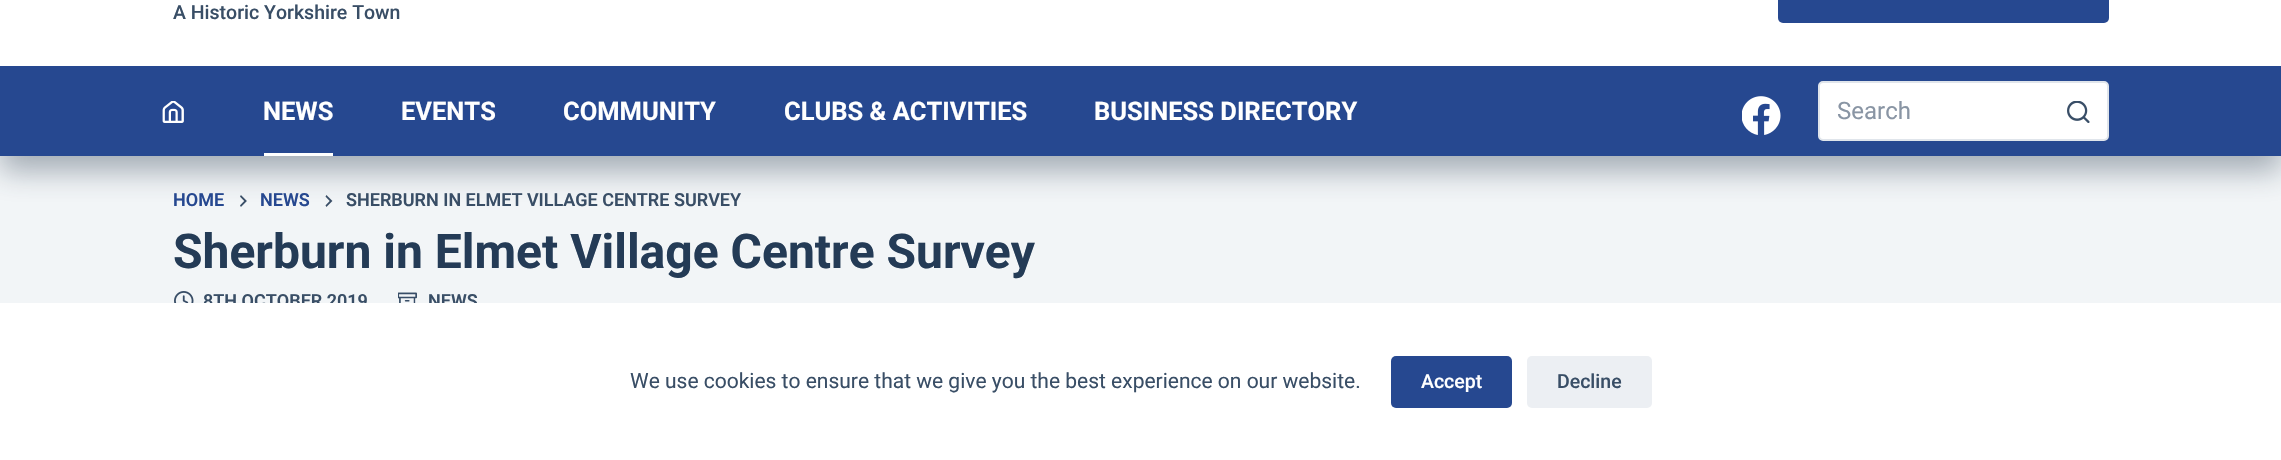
void draw(SkCanvas* canvas) {
	SkPaint fill;
	fill.setAntiAlias(true);
	auto makeFont = [&](const char* family, int weight, float size, bool italic = false) {
		SkFontStyle style(weight, SkFontStyle::kNormal_Width,
			italic ? SkFontStyle::kItalic_Slant : SkFontStyle::kUpright_Slant);
		SkFont result(fontMgr->matchFamilyStyle(family, style), size);
		result.setSubpixel(true);
		return result;
	};
	auto text = [&](const char* s, float x, float y, const SkFont& font) {
		canvas->drawString(s, x, y, font, fill);
	};
	auto box = [&](float l, float t, float r, float b) {
		canvas->drawRect(SkRect::MakeLTRB(l, t, r, b), fill);
	};
	auto roundBox = [&](float l, float t, float r, float b, float radius) {
		canvas->drawRoundRect(SkRect::MakeLTRB(l, t, r, b), radius, radius, fill);
	};
	auto picture = [&](const char* path, float l, float t, float r, float b) {
		auto image = SkImages::DeferredFromEncodedData(SkData::MakeFromFileName(path));
		canvas->drawImageRect(image, SkRect::MakeLTRB(l, t, r, b), SkSamplingOptions());
	};
	canvas->clear(0xFFF2F5F7);
	picture("image3.png", 240, 195, 247, 207);
	picture("image4.png", 325, 195, 333, 207);
	fill.setColor(0x662B3D4F);
	fill.setMaskFilter(SkMaskFilter::MakeBlur(kNormal_SkBlurStyle, 15));
	canvas->drawRect(SkRect::MakeLTRB(0, 81, 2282, 171), fill);
	fill.setMaskFilter(nullptr);
	fill.setColor(0xFFFFFFFF);
	box(0, 0, 2281, 66);
	fill.setColor(0xFF264890);
	roundBox(1778, -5, 2109, 23, 5);
	box(0, 66, 2281, 156);
	picture("image0.png", 162, 101, 184, 123);
	fill.setColor(0xFFFFFFFF);
	box(264, 153, 333, 156);
	picture("image1.png", 1742, 96, 1781, 135);
	canvas->drawRoundRect(SkRect::MakeLTRB(1819, 82, 2108, 140), 4, 4, fill);
	fill.setStyle(SkPaint::kStroke_Style);
	fill.setStrokeWidth(2);
	fill.setColor(0xFFE0E5EB);
	canvas->drawRoundRect(SkRect::MakeLTRB(1819, 82, 2108, 140), 4, 4, fill);
	picture("image2.png", 2067, 101, 2090, 123);
	picture("image5.png", 174, 291, 194, 303);
	picture("image6.png", 398, 292, 417, 303);
	auto font1 = makeFont("Roboto", 500, 19.5f);
	fill.setStyle(SkPaint::kFill_Style);
	fill.setColor(0xFF394E66);
	text("A Historic Yorkshire Town", 173, 19, font1);
	auto font2 = makeFont("Roboto", 700, 25.5f);
	fill.setColor(0xFFFFFFFF);
	text("NEWS", 263, 120, font2);
	text("EVENTS", 401, 120, font2);
	text("COMMUNITY", 563, 120, font2);
	text("CLUBS & ACTIVITIES", 784, 120, font2);
	text("BUSINESS DIRECTORY", 1094, 120, font2);
	auto font3 = makeFont("Roboto", 400, 24);
	fill.setColor(0xFF8995A4);
	text("Search", 1837, 119, font3);
	auto font4 = makeFont("Roboto", 600, 18);
	fill.setColor(0xFF264890);
	text("HOME", 173, 206, font4);
	text("NEWS", 260, 206, font4);
	fill.setColor(0xFF394E66);
	text("SHERBURN IN ELMET VILLAGE CENTRE SURVEY", 346, 206, font4);
	auto font5 = makeFont("Roboto", 700, 48);
	fill.setColor(0xFF243B56);
	text("Sherburn in Elmet Village Centre Survey", 173, 268, font5);
	fill.setColor(0xFF394E66);
	text("8TH OCTOBER 2019", 203, 307, font4);
	text("NEWS", 428, 307, font4);
	fill.setColor(0xFFFFFFFF);
	box(0, 303, 2281, 460);
	auto font6 = makeFont("Roboto", 400, 21);
	fill.setColor(0xFF394E66);
	text("We use cookies to ensure that we give you the best experience on our website.", 630, 388, font6);
	fill.setColor(0xFF264890);
	roundBox(1391, 356, 1512, 408, 5);
	fill.setColor(0xFFFFFFFF);
	text("Accept", 1421, 388, font1);
	fill.setColor(0xFFECEFF3);
	roundBox(1527, 356, 1652, 408, 5);
	fill.setColor(0xFF394E66);
	text("Decline", 1557, 388, font1);
}
